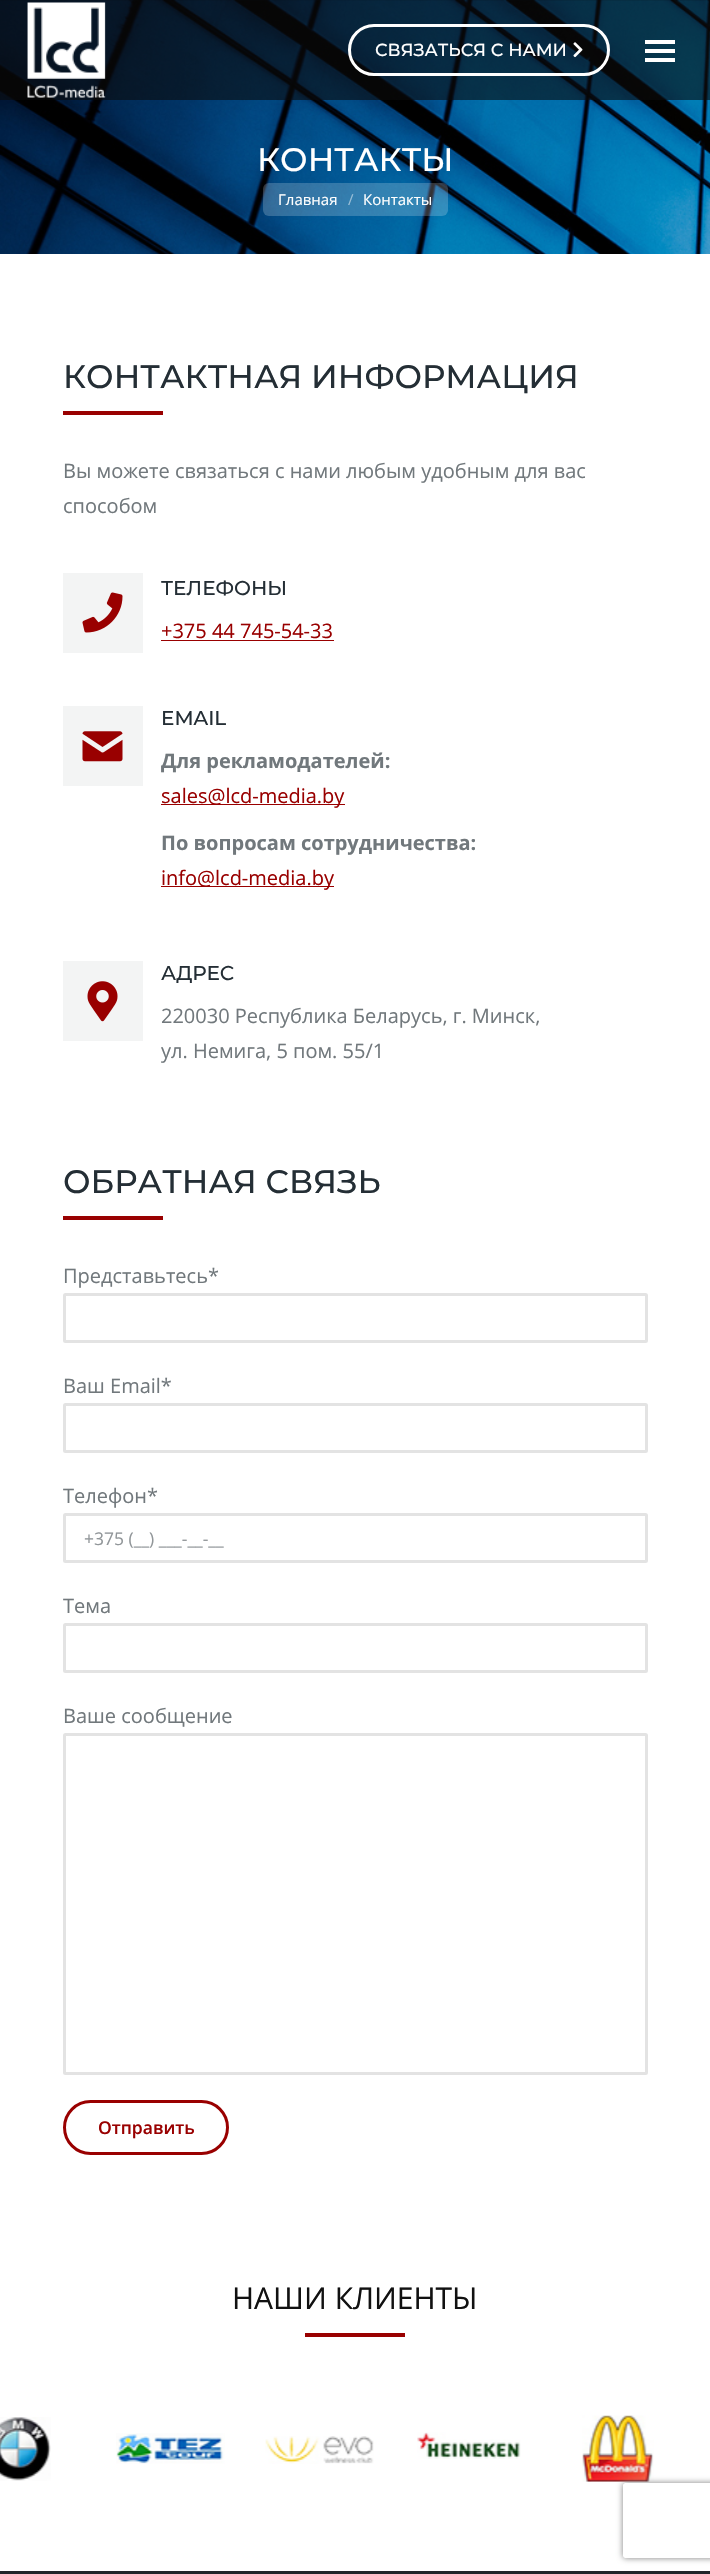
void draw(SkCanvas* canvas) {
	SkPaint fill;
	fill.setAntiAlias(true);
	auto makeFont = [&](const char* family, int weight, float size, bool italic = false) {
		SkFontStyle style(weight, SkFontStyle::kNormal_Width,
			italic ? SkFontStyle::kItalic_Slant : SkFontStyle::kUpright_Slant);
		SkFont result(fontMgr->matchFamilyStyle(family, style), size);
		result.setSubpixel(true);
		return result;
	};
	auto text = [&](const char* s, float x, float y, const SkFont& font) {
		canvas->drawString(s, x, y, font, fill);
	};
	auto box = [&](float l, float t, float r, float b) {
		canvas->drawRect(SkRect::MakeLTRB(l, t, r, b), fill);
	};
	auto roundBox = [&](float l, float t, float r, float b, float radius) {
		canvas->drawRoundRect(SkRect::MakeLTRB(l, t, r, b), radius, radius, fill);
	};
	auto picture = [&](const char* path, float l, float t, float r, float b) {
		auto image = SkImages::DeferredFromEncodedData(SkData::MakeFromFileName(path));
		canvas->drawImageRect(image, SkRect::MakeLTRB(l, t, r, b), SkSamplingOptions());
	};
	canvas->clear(0xFFFFFFFF);
	picture("image2.png", 0, 0, 710, 254);
	fill.setColor(0x990A0A0A);
	box(0, 0, 710, 100);
	picture("image0.png", 27, 2, 106, 98);
	fill.setStyle(SkPaint::kStroke_Style);
	fill.setStrokeWidth(3);
	fill.setColor(0xFFFFFFFF);
	canvas->drawRoundRect(SkRect::MakeLTRB(349.5f, 25.5f, 608.5f, 74.5f), 24.5f, 24.5f, fill);
	picture("image1.png", 573, 42, 583, 58);
	fill.setStyle(SkPaint::kFill_Style);
	box(645, 40, 675, 44);
	box(645, 49, 675, 53);
	box(645, 58, 675, 62);
	fill.setColor(0x33FFFFFF);
	roundBox(263, 183, 448, 216, 6);
	fill.setColor(0xFF990000);
	box(63, 411, 163, 415);
	fill.setColor(0xFFF3F4F4);
	box(63, 573, 143, 653);
	picture("image3.png", 82, 592, 123, 633);
	fill.setColor(0xFF990000);
	box(161, 640, 334, 641);
	fill.setColor(0xFFF3F4F4);
	box(63, 706, 143, 786);
	picture("image4.png", 82, 731, 123, 762);
	fill.setColor(0xFF990000);
	box(161, 804, 345, 805);
	box(161, 886, 334, 887);
	fill.setColor(0xFFF3F4F4);
	box(63, 961, 143, 1041);
	picture("image5.png", 87, 981, 118, 1022);
	fill.setColor(0xFF990000);
	box(63, 1216, 163, 1220);
	fill.setStyle(SkPaint::kStroke_Style);
	fill.setColor(0xFFE3E3E3);
	canvas->drawRoundRect(SkRect::MakeLTRB(64.5f, 1294.5f, 646.5f, 1341.5f), 1, 1, fill);
	canvas->drawRoundRect(SkRect::MakeLTRB(64.5f, 1404.5f, 646.5f, 1451.5f), 1, 1, fill);
	canvas->drawRoundRect(SkRect::MakeLTRB(64.5f, 1514.5f, 646.5f, 1561.5f), 1, 1, fill);
	canvas->drawRoundRect(SkRect::MakeLTRB(64.5f, 1624.5f, 646.5f, 1671.5f), 1, 1, fill);
	canvas->drawRoundRect(SkRect::MakeLTRB(64.5f, 1734.5f, 646.5f, 2073.5f), 1, 1, fill);
	fill.setColor(0xFF990000);
	canvas->drawRoundRect(SkRect::MakeLTRB(64.5f, 2101.5f, 227.5f, 2153.5f), 26, 26, fill);
	fill.setStyle(SkPaint::kFill_Style);
	fill.setColor(0xFF20262A);
	box(0, 2571, 710, 2574);
	fill.setColor(0xFF990000);
	box(305, 2333, 405, 2337);
	picture("image6.png", 0, 2417, 51, 2481);
	picture("image7.png", 116, 2433, 225, 2464);
	picture("image8.png", 265, 2436, 374, 2464);
	picture("image9.png", 417, 2432, 521, 2459);
	picture("image10.png", 582, 2415, 654, 2482);
	canvas->save();
	canvas->clipPath(SkPathBuilder(SkPathFillType::kEvenOdd).moveTo(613, 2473).lineTo(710, 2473).lineTo(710, 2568).lineTo(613, 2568).close().moveTo(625.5f, 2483).lineTo(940.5f, 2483).cubicTo(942, 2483, 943, 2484, 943, 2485.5f).lineTo(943, 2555.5f).cubicTo(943, 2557, 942, 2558, 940.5f, 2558).lineTo(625.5f, 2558).cubicTo(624, 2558, 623, 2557, 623, 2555.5f).lineTo(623, 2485.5f).cubicTo(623, 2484, 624, 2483, 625.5f, 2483).close().detach(), true);
	fill.setColor(0xFF808080);
	fill.setMaskFilter(SkMaskFilter::MakeBlur(kNormal_SkBlurStyle, 3));
	canvas->drawRoundRect(SkRect::MakeLTRB(623, 2483, 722, 2558), 2.5f, 2.5f, fill);
	fill.setMaskFilter(nullptr);
	canvas->restore();
	auto font1 = makeFont("Montserrat", 500, 17.5f);
	fill.setColor(0xFFFFFFFF);
	text("СВЯЗАТЬСЯ С НАМИ", 375, 56, font1);
	auto font2 = makeFont("Montserrat", 500, 32.5f);
	text("КОНТАКТЫ", 257, 171, font2);
	auto font3 = makeFont("Open Sans", 400, 15);
	text("Главная", 278, 205, font3);
	fill.setColor(0xFF99BED7);
	text("/", 348, 205, font3);
	fill.setColor(0xFFFFFFFF);
	text("Контакты", 363, 205, font3);
	fill.setColor(0xFF242E35);
	text("КОНТАКТНАЯ ИНФОРМАЦИЯ", 63, 388, font2);
	auto font4 = makeFont("Open Sans", 400, 20);
	fill.setColor(0xFF71787C);
	text("Вы можете связаться с нами любым удобным для вас", 63, 478, font4);
	text("способом", 63, 513, font4);
	auto font5 = makeFont("Montserrat", 500, 20);
	fill.setColor(0xFF242E35);
	text("ТЕЛЕФОНЫ", 161, 595, font5);
	fill.setColor(0xFF990000);
	text("+375 44 745-54-33", 161, 638, font4);
	fill.setColor(0xFF242E35);
	text("EMAIL", 161, 725, font5);
	auto font6 = makeFont("Open Sans", 700, 20);
	fill.setColor(0xFF71787C);
	text("Для рекламодателей:", 161, 768, font6);
	fill.setColor(0xFF990000);
	text("sales@lcd-media.by", 161, 803, font4);
	fill.setColor(0xFF71787C);
	text("По вопросам сотрудничества:", 161, 850, font6);
	fill.setColor(0xFF990000);
	text("info@lcd-media.by", 161, 885, font4);
	fill.setColor(0xFF242E35);
	text("АДРЕС", 161, 980, font5);
	fill.setColor(0xFF71787C);
	text("220030 Республика Беларусь, г. Минск,", 161, 1023, font4);
	text("ул. Немига, 5 пом. 55/1", 161, 1058, font4);
	fill.setColor(0xFF242E35);
	text("ОБРАТНАЯ СВЯЗЬ", 63, 1193, font2);
	fill.setColor(0xFF71787C);
	text("Представьтесь*", 63, 1283, font4);
	text("Ваш Email*", 63, 1393, font4);
	text("Телефон*", 63, 1503, font4);
	auto font7 = makeFont("Open Sans", 400, 17.5f);
	fill.setColor(0xFF919699);
	text("+375 (__) ___-__-__", 84, 1545, font7);
	fill.setColor(0xFF71787C);
	text("Тема", 63, 1613, font4);
	text("Ваше сообщение", 63, 1723, font4);
	auto font8 = makeFont("Open Sans", 600, 17.5f);
	fill.setColor(0xFF990000);
	text("Отправить", 98, 2134, font8);
	auto font9 = makeFont("Open Sans", 400, 30);
	fill.setColor(0xFF111111);
	text("НАШИ КЛИЕНТЫ", 232, 2309, font9);
}
